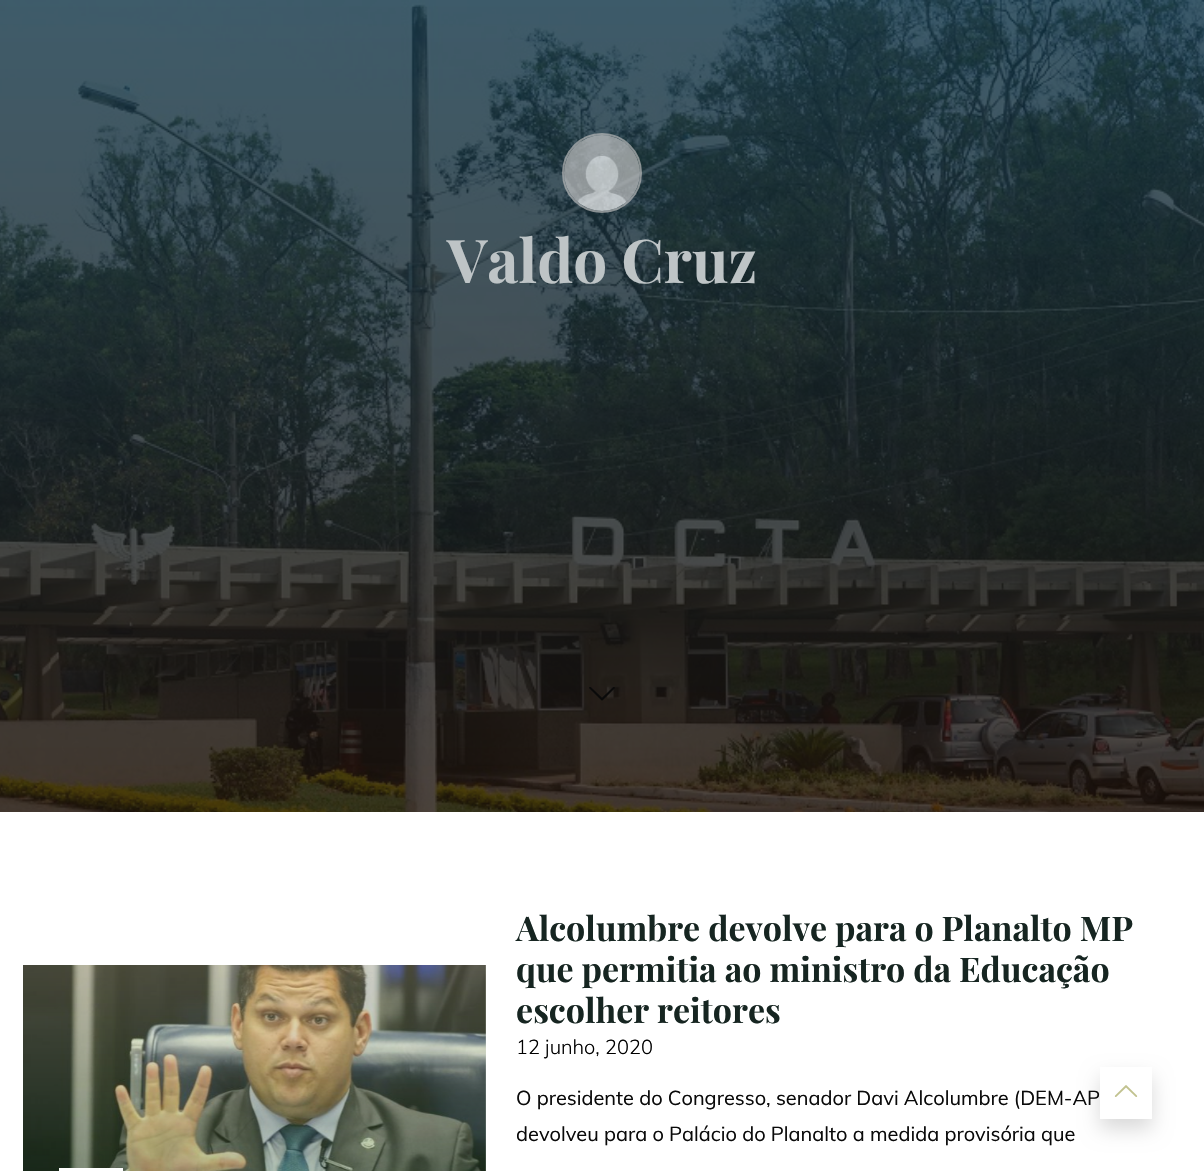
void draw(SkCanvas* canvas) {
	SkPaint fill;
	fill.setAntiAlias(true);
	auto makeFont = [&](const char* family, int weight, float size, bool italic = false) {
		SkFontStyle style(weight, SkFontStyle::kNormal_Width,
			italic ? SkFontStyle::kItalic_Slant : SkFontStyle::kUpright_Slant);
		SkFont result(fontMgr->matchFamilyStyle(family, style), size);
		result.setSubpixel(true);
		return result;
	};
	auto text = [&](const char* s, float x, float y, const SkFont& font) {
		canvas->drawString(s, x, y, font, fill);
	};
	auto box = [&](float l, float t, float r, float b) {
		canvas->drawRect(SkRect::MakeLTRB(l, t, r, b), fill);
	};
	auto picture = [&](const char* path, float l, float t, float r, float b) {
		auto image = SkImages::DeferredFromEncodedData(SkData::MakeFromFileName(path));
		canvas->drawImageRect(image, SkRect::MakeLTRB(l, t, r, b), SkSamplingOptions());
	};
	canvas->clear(0xFFFFFFFF);
	picture("image0.png", 0, 0, 1204, 812);
	fill.setStyle(SkPaint::kStroke_Style);
	fill.setStrokeWidth(2);
	fill.setColor(0xB0BBBBBB);
	canvas->drawCircle(602, 173, 39, fill);
	picture("image1.png", 564, 135, 640, 211);
	picture("image2.png", 589, 687, 615, 701);
	picture("image3.png", 23, 965, 486, 1171);
	fill.setStyle(SkPaint::kFill_Style);
	{
		const SkColor colors[] = {0x4DC1C28F, 0x4D0B440C};
		const float stops[] = {0, 1};
		const SkPoint ends[] = {{254, 965}, {255, 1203}};
		fill.setShader(SkGradientShader::MakeLinear(ends, colors, stops, 2, SkTileMode::kClamp));
		fill.setAlpha(255);
	}
	box(23, 965, 486, 1171);
	fill.setShader(nullptr);
	fill.setColor(0xFFFFFFFF);
	box(59, 1168, 123, 1171);
	fill.setColor(0x26000000);
	fill.setMaskFilter(SkMaskFilter::MakeBlur(kNormal_SkBlurStyle, 10));
	canvas->drawRect(SkRect::MakeLTRB(1100, 1077, 1152, 1129), fill);
	fill.setMaskFilter(nullptr);
	fill.setColor(0xFFFFFFFF);
	box(1100, 1067, 1152, 1119);
	picture("image4.png", 1114, 1085, 1138, 1097);
	auto font1 = makeFont("Playfair Display", 700, 60.25f);
	fill.setColor(0xFFBEC4C6);
	text("Valdo Cruz", 447, 283, font1);
	auto font2 = makeFont("Playfair Display", 700, 34);
	fill.setColor(0xFF162521);
	text("Alcolumbre devolve para o Planalto MP", 516, 941, font2);
	text("que permitia ao ministro da Educação", 516, 982, font2);
	text("escolher reitores", 516, 1023, font2);
	auto font3 = makeFont("Muli", 300, 20);
	fill.setColor(0xFF000000);
	text("12 junho, 2020", 516, 1054, font3);
	auto font4 = makeFont("Muli", 400, 20);
	fill.setColor(0xFF0A0A0A);
	text("O presidente do Congresso, senador Davi Alcolumbre (DEM-AP", 516, 1105, font4);
	text("devolveu para o Palácio do Planalto a medida provisória que", 516, 1141, font4);
}
